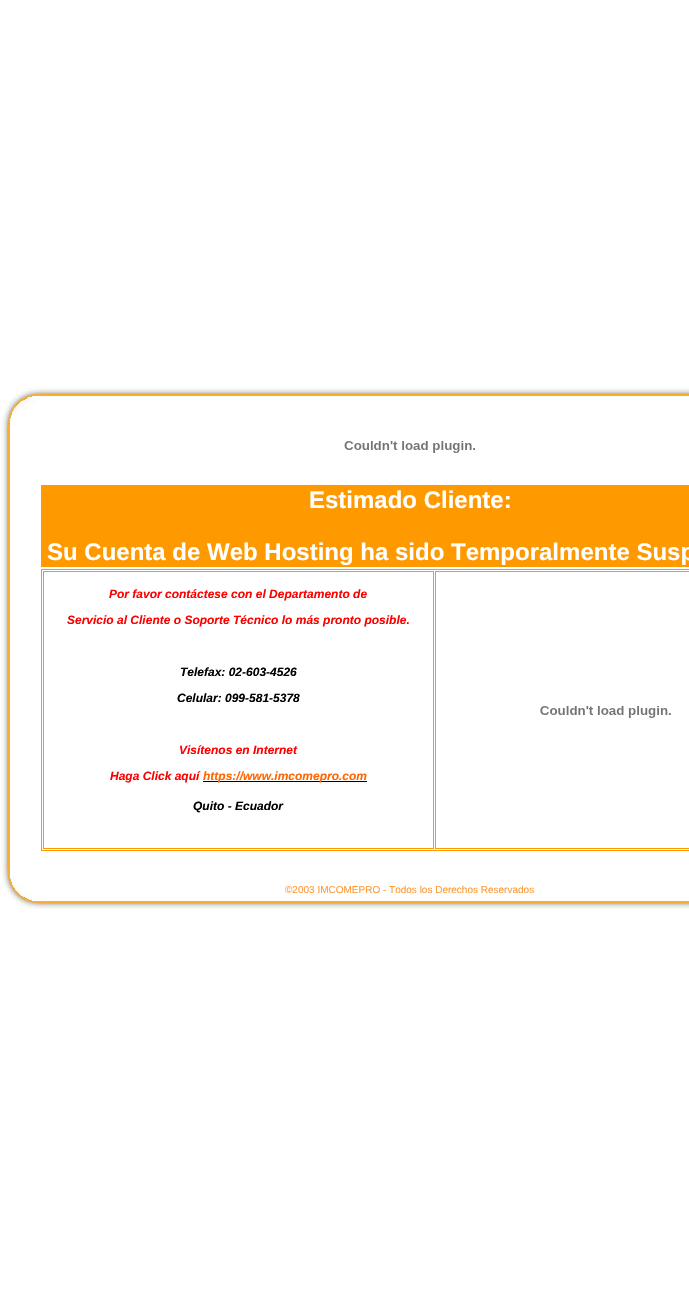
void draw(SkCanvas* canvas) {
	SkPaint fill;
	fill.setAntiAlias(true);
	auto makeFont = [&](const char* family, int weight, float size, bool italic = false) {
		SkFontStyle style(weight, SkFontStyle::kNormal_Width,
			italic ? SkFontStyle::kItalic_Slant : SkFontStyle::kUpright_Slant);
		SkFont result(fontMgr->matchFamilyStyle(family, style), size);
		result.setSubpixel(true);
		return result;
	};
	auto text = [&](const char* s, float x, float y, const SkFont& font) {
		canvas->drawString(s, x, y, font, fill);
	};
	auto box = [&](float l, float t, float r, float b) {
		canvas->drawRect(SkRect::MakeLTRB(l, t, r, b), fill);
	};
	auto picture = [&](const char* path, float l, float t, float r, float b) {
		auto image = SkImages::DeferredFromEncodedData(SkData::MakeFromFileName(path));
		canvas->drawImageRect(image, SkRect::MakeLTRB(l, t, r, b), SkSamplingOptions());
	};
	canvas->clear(0xFFFFFFFF);
	picture("image0.png", 1, 425, 10, 869);
	picture("image1.png", 1, 385, 689, 425);
	picture("image2.png", 344, 441, 475, 453);
	fill.setColor(0xFFFF9900);
	box(41, 485, 689, 567);
	fill.setStyle(SkPaint::kStroke_Style);
	fill.setStrokeWidth(1);
	canvas->drawRect(SkRect::MakeLTRB(41.5f, 569.5f, 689.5f, 850.5f), fill);
	canvas->drawRect(SkRect::MakeLTRB(43.5f, 571.5f, 433.5f, 848.5f), fill);
	fill.setStyle(SkPaint::kFill_Style);
	fill.setColor(0xFF000000);
	box(203, 781, 367, 782);
	fill.setStyle(SkPaint::kStroke_Style);
	fill.setColor(0xFFFF9900);
	canvas->drawRect(SkRect::MakeLTRB(435.5f, 571.5f, 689.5f, 848.5f), fill);
	picture("image3.png", 540, 706, 671, 718);
	picture("image4.png", 1, 869, 689, 909);
	auto font1 = makeFont("Liberation Sans", 700, 24);
	fill.setStyle(SkPaint::kFill_Style);
	fill.setColor(0xFFFFFFFF);
	text("Estimado Cliente:", 309, 508, font1);
	text("Su Cuenta de Web Hosting ha sido Temporalmente Susp", 47, 560, font1);
	auto font2 = makeFont("Liberation Sans", 700, 12, true);
	fill.setColor(0xFFFF0000);
	text("Por favor contáctese con el Departamento de", 109, 598, font2);
	text("Servicio al Cliente o Soporte Técnico lo más pronto posible.", 67, 624, font2);
	fill.setColor(0xFF000000);
	text("Telefax: 02-603-4526", 180, 676, font2);
	text("Celular: 099-581-5378", 177, 702, font2);
	fill.setColor(0xFFFF0000);
	text("Visítenos en Internet", 179, 754, font2);
	text("Haga Click aquí", 110, 780, font2);
	fill.setColor(0xFFFF6600);
	text("https://www.imcomepro.com", 203, 780, font2);
	fill.setColor(0xFF000000);
	text("Quito - Ecuador", 193, 810, font2);
	auto font3 = makeFont("Liberation Sans", 400, 10);
	fill.setColor(0xFFFF9933);
	text("©2003 IMCOMEPRO - Todos los Derechos Reservados", 285, 893, font3);
}
